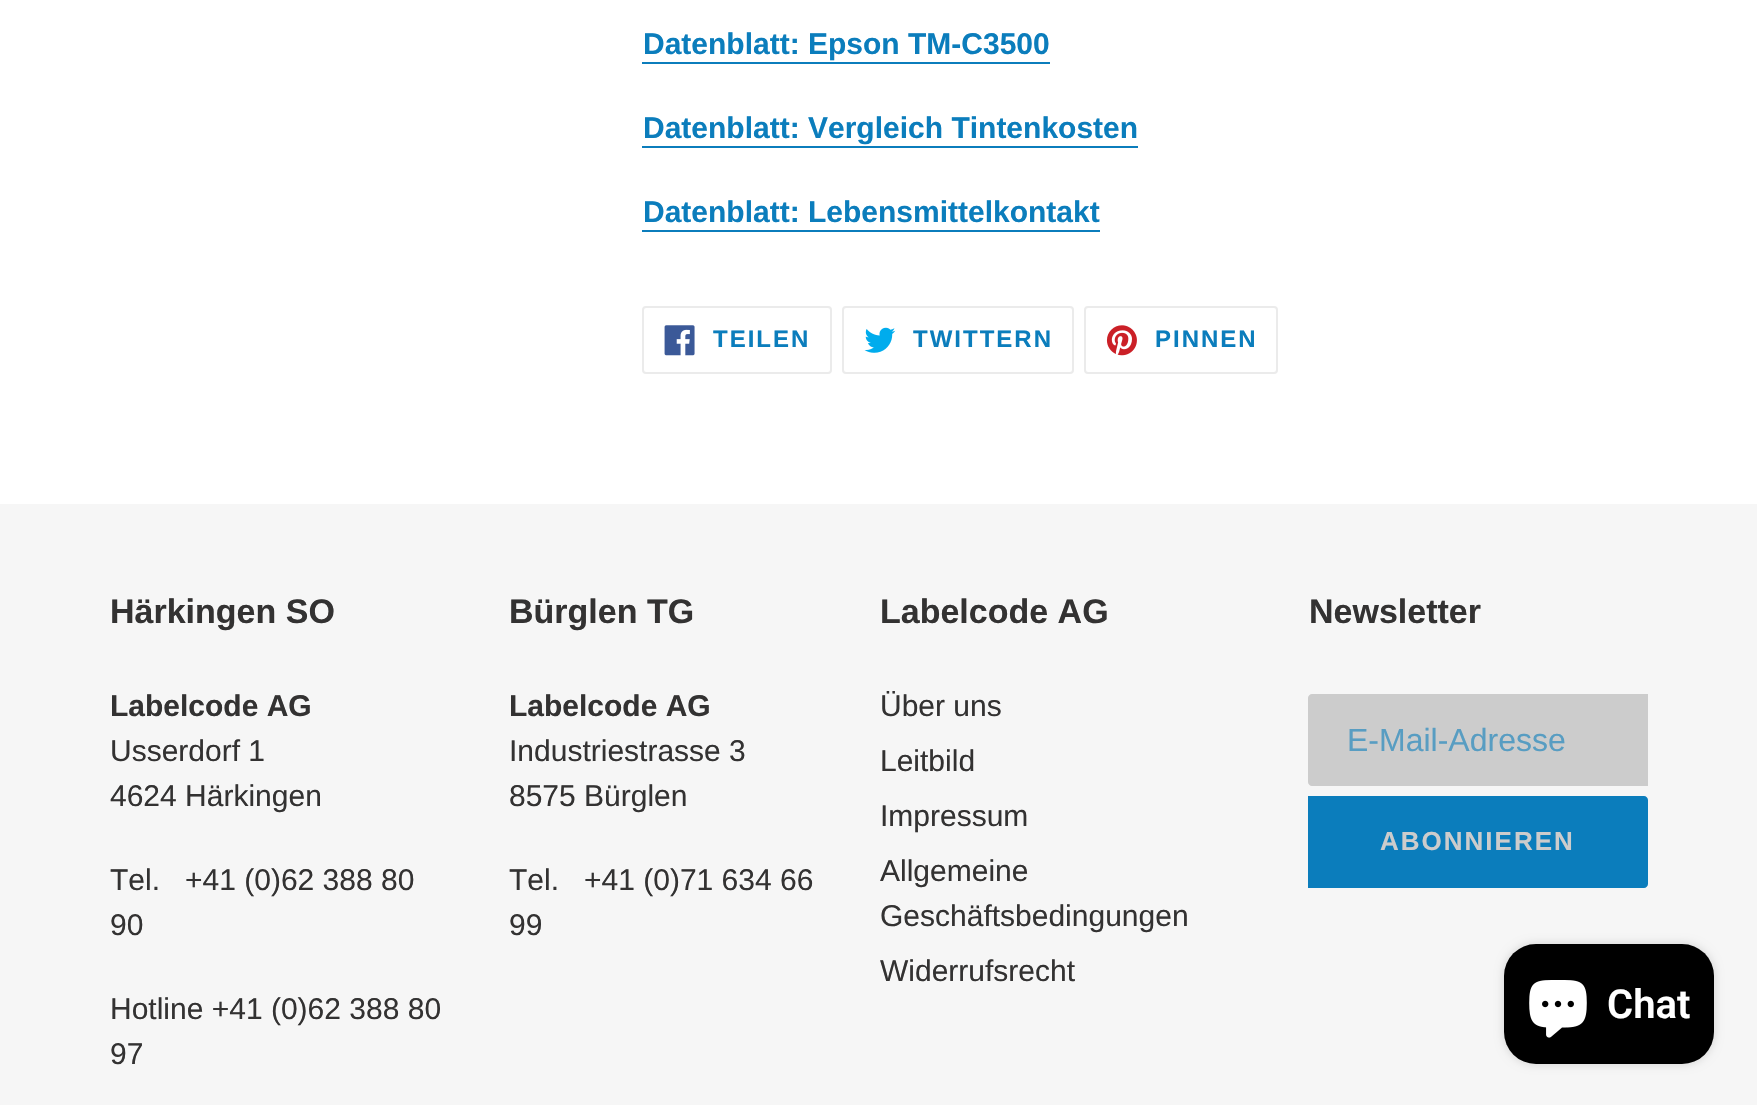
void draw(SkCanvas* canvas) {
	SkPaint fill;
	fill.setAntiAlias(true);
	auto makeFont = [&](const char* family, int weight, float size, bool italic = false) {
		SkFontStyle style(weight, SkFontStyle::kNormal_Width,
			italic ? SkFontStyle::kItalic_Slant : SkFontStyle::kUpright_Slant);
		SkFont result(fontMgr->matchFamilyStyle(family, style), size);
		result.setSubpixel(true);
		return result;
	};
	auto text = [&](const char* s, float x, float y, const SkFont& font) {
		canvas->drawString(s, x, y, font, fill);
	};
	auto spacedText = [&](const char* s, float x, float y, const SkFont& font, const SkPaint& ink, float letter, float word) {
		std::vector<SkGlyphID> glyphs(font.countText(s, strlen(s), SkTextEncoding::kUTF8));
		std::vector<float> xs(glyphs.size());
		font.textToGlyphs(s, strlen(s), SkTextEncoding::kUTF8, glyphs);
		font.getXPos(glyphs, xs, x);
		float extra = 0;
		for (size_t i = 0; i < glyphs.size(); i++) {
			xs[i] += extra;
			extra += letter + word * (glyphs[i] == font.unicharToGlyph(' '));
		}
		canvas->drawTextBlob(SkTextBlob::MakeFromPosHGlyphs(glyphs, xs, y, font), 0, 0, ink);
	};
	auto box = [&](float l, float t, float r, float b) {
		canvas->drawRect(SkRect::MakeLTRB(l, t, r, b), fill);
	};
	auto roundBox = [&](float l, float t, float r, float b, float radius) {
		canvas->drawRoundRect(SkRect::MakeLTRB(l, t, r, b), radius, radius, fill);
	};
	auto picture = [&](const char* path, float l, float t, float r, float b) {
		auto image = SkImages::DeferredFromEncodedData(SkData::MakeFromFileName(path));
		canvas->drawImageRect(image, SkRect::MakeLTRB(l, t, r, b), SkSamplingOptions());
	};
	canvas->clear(0xFFFFFFFF);
	fill.setColor(0xFF0B7DBC);
	box(642, 62, 1050, 64);
	box(642, 146, 1138, 148);
	box(642, 230, 1100, 232);
	fill.setStyle(SkPaint::kStroke_Style);
	fill.setStrokeWidth(2);
	fill.setColor(0xFFEBEBEB);
	canvas->drawRoundRect(SkRect::MakeLTRB(643, 307, 831, 373), 3, 3, fill);
	picture("image0.png", 664, 325, 695, 356);
	canvas->drawRoundRect(SkRect::MakeLTRB(843, 307, 1073, 373), 3, 3, fill);
	picture("image1.png", 864, 327, 896, 353);
	canvas->drawRoundRect(SkRect::MakeLTRB(1085, 307, 1277, 373), 3, 3, fill);
	picture("image2.png", 1106, 325, 1137, 356);
	fill.setStyle(SkPaint::kFill_Style);
	fill.setColor(0xFFF6F6F6);
	box(0, 504, 1757, 1105);
	fill.setColor(0xFFCCCCCC);
	canvas->drawPath(SkPathBuilder().moveTo(1312, 695).lineTo(1647, 695).lineTo(1647, 785).lineTo(1312, 785).cubicTo(1310.5f, 785, 1309, 783.5f, 1309, 782).lineTo(1309, 698).cubicTo(1309, 696.5f, 1310.5f, 695, 1312, 695).close().detach(), fill);
	fill.setStyle(SkPaint::kStroke_Style);
	canvas->drawPath(SkPathBuilder().moveTo(1312, 695).lineTo(1647, 695).lineTo(1647, 785).lineTo(1312, 785).cubicTo(1310.5f, 785, 1309, 783.5f, 1309, 782).lineTo(1309, 698).cubicTo(1309, 696.5f, 1310.5f, 695, 1312, 695).close().detach(), fill);
	fill.setStyle(SkPaint::kFill_Style);
	fill.setColor(0xFF0B7DBC);
	canvas->drawPath(SkPathBuilder().moveTo(1308, 796).lineTo(1644, 796).cubicTo(1646, 796, 1648, 798, 1648, 800).lineTo(1648, 884).cubicTo(1648, 886, 1646, 888, 1644, 888).lineTo(1308, 888).close().detach(), fill);
	fill.setColor(0x26000000);
	fill.setMaskFilter(SkMaskFilter::MakeBlur(kNormal_SkBlurStyle, 5));
	canvas->drawRoundRect(SkRect::MakeLTRB(1504, 944, 1714, 1064), 32, 32, fill);
	fill.setMaskFilter(nullptr);
	fill.setColor(0xFF000000);
	roundBox(1504, 944, 1714, 1064, 32);
	picture("image3.png", 1529, 980, 1587, 1038);
	auto font1 = makeFont("Liberation Sans", 700, 30);
	fill.setColor(0xFF0B7DBC);
	text("Datenblatt: Epson TM-C3500", 643, 54, font1);
	text("Datenblatt: Vergleich Tintenkosten", 643, 138, font1);
	text("Datenblatt: Lebensmittelkontakt", 643, 222, font1);
	auto font2 = makeFont("Liberation Sans", 700, 24);
	spacedText("TEILEN", 713, 347, font2, fill, 2, 0);
	spacedText("TWITTERN", 913, 347, font2, fill, 2, 0);
	spacedText("PINNEN", 1155, 347, font2, fill, 2, 0);
	auto font3 = makeFont("Liberation Sans", 700, 34);
	fill.setColor(0xFF333232);
	text("Härkingen SO", 110, 623, font3);
	text("Labelcode AG", 110, 716, font1);
	auto font4 = makeFont("Liberation Sans", 400, 30);
	text("Usserdorf 1", 110, 761, font4);
	text("4624 Härkingen", 110, 806, font4);
	text("Tel.", 110, 890, font4);
	text("+41 (0)62 388 80", 185, 890, font4);
	text("90", 110, 935, font4);
	text("Hotline +41 (0)62 388 80", 110, 1019, font4);
	text("97", 110, 1064, font4);
	text("Bürglen TG", 509, 623, font3);
	text("Labelcode AG", 509, 716, font1);
	text("Industriestrasse 3", 509, 761, font4);
	text("8575 Bürglen", 509, 806, font4);
	text("Tel.   +41 (0)71 634 66", 509, 890, font4);
	text("99", 509, 935, font4);
	text("Labelcode AG", 880, 623, font3);
	text("Über uns", 880, 716, font4);
	text("Leitbild", 880, 771, font4);
	text("Impressum", 880, 826, font4);
	text("Allgemeine", 880, 881, font4);
	text("Geschäftsbedingungen", 880, 926, font4);
	text("Widerrufsrecht", 880, 981, font4);
	text("Newsletter", 1309, 623, font3);
	auto font5 = makeFont("Liberation Sans", 400, 32);
	fill.setColor(0xFF589DC2);
	text("E-Mail-Adresse", 1347, 751, font5);
	auto font6 = makeFont("Liberation Sans", 700, 26);
	fill.setColor(0xFFCCCCCC);
	spacedText("ABONNIEREN", 1380, 850, font6, fill, 2, 0);
	auto font7 = makeFont("Roboto", 600, 40);
	fill.setColor(0xFFFFFFFF);
	text("Chat", 1607, 1018, font7);
}
